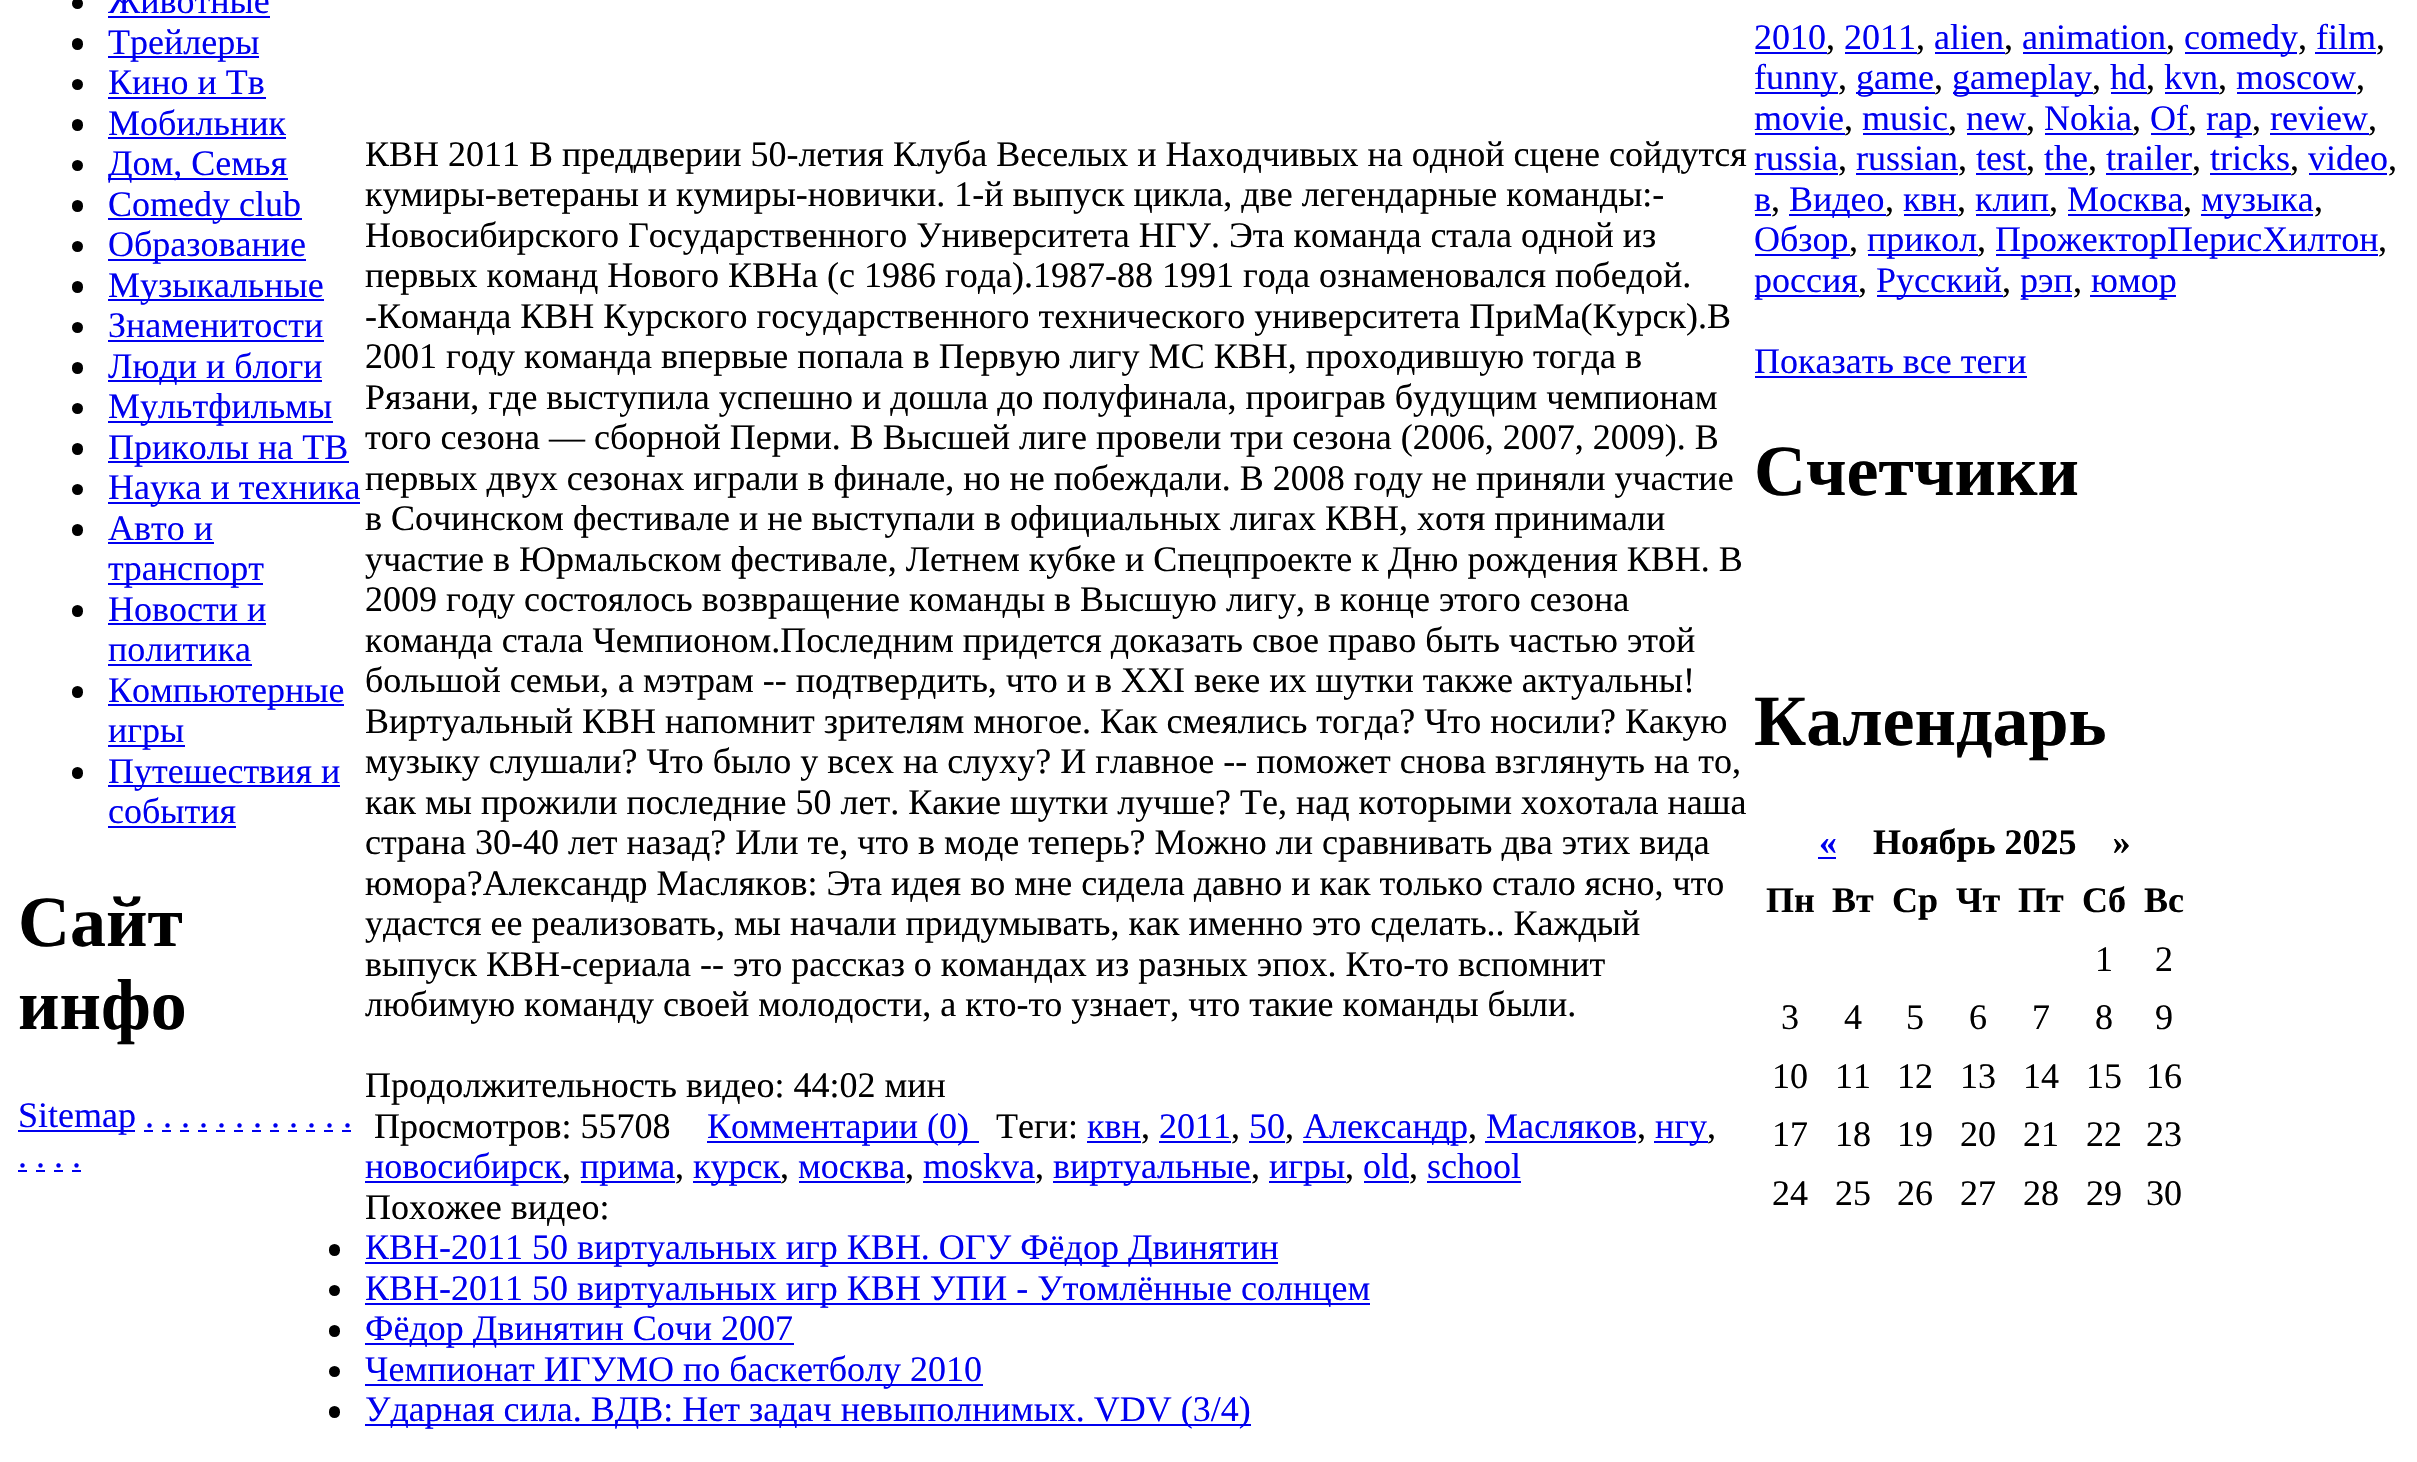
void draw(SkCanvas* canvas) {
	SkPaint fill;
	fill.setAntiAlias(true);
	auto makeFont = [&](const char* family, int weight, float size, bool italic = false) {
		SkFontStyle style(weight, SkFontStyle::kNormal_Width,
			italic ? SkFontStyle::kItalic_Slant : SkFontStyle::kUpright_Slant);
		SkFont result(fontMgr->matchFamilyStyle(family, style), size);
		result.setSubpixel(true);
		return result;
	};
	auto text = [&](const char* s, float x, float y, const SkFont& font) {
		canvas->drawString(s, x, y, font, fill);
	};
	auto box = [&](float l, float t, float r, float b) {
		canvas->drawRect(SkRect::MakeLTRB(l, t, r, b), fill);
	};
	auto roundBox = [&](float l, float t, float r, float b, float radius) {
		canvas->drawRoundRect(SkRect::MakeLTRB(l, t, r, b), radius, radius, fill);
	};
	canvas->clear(0xFFFFFFFF);
	fill.setColor(0xFF000000);
	canvas->drawCircle(77.5f, 3.5f, 5.5f, fill);
	fill.setColor(0xFF0000EE);
	box(108, 16, 270, 18);
	fill.setColor(0xFF000000);
	roundBox(72, 38, 83, 50, 5.5f);
	fill.setColor(0xFF0000EE);
	box(108, 56, 259, 58);
	fill.setColor(0xFF000000);
	canvas->drawCircle(77.5f, 84.5f, 5.5f, fill);
	fill.setColor(0xFF0000EE);
	box(108, 97, 266, 99);
	fill.setColor(0xFF000000);
	roundBox(72, 119, 83, 131, 5.5f);
	fill.setColor(0xFF0000EE);
	box(108, 137, 286, 139);
	fill.setColor(0xFF000000);
	canvas->drawCircle(77.5f, 165.5f, 5.5f, fill);
	fill.setColor(0xFF0000EE);
	box(108, 178, 288, 180);
	fill.setColor(0xFF000000);
	roundBox(72, 200, 83, 212, 5.5f);
	fill.setColor(0xFF0000EE);
	box(108, 218, 302, 220);
	fill.setColor(0xFF000000);
	canvas->drawCircle(77.5f, 246.5f, 5.5f, fill);
	fill.setColor(0xFF0000EE);
	box(108, 259, 306, 261);
	fill.setColor(0xFF000000);
	roundBox(72, 281, 83, 293, 5.5f);
	fill.setColor(0xFF0000EE);
	box(108, 299, 324, 301);
	fill.setColor(0xFF000000);
	canvas->drawCircle(77.5f, 327.5f, 5.5f, fill);
	fill.setColor(0xFF0000EE);
	box(108, 340, 324, 342);
	fill.setColor(0xFF000000);
	roundBox(72, 362, 83, 374, 5.5f);
	fill.setColor(0xFF0000EE);
	box(108, 380, 322, 382);
	fill.setColor(0xFF000000);
	canvas->drawCircle(77.5f, 408.5f, 5.5f, fill);
	fill.setColor(0xFF0000EE);
	box(108, 421, 333, 423);
	fill.setColor(0xFF000000);
	roundBox(72, 443, 83, 455, 5.5f);
	fill.setColor(0xFF0000EE);
	box(108, 461, 349, 463);
	fill.setColor(0xFF000000);
	canvas->drawCircle(77.5f, 489.5f, 5.5f, fill);
	fill.setColor(0xFF0000EE);
	box(108, 502, 360, 504);
	fill.setColor(0xFF000000);
	roundBox(72, 524, 83, 536, 5.5f);
	fill.setColor(0xFF0000EE);
	box(108, 542, 214, 544);
	box(108, 583, 263, 585);
	fill.setColor(0xFF000000);
	roundBox(72, 605, 83, 617, 5.5f);
	fill.setColor(0xFF0000EE);
	box(108, 623, 266, 625);
	box(108, 664, 252, 666);
	fill.setColor(0xFF000000);
	roundBox(72, 686, 83, 698, 5.5f);
	fill.setColor(0xFF0000EE);
	box(108, 704, 344, 706);
	box(108, 745, 185, 747);
	fill.setColor(0xFF000000);
	roundBox(72, 767, 83, 779, 5.5f);
	fill.setColor(0xFF0000EE);
	box(108, 785, 340, 787);
	box(108, 826, 236, 828);
	box(18, 1130, 135, 1132);
	box(144, 1130, 153, 1132);
	box(162, 1130, 171, 1132);
	box(180, 1130, 189, 1132);
	box(198, 1130, 207, 1132);
	box(216, 1130, 225, 1132);
	box(234, 1130, 243, 1132);
	box(252, 1130, 261, 1132);
	box(270, 1130, 279, 1132);
	box(288, 1130, 297, 1132);
	box(306, 1130, 315, 1132);
	box(324, 1130, 333, 1132);
	box(342, 1130, 351, 1132);
	box(18, 1170, 27, 1172);
	box(36, 1170, 45, 1172);
	box(54, 1170, 63, 1172);
	box(72, 1170, 81, 1172);
	box(707, 1141, 979, 1143);
	box(1087, 1141, 1141, 1143);
	box(1159, 1141, 1231, 1143);
	box(1249, 1141, 1285, 1143);
	box(1303, 1141, 1467, 1143);
	box(1485, 1141, 1636, 1143);
	box(1654, 1141, 1708, 1143);
	box(365, 1181, 563, 1183);
	box(581, 1181, 675, 1183);
	box(693, 1181, 781, 1183);
	box(799, 1181, 905, 1183);
	box(923, 1181, 1035, 1183);
	box(1053, 1181, 1251, 1183);
	box(1269, 1181, 1346, 1183);
	box(1364, 1181, 1409, 1183);
	box(1427, 1181, 1521, 1183);
	fill.setColor(0xFF000000);
	roundBox(329, 1244, 340, 1256, 5.5f);
	fill.setColor(0xFF0000EE);
	box(365, 1262, 1278, 1264);
	fill.setColor(0xFF000000);
	canvas->drawCircle(334.5f, 1290.5f, 5.5f, fill);
	fill.setColor(0xFF0000EE);
	box(365, 1303, 1370, 1305);
	fill.setColor(0xFF000000);
	roundBox(329, 1325, 340, 1337, 5.5f);
	fill.setColor(0xFF0000EE);
	box(365, 1343, 794, 1345);
	fill.setColor(0xFF000000);
	canvas->drawCircle(334.5f, 1371.5f, 5.5f, fill);
	fill.setColor(0xFF0000EE);
	box(365, 1384, 983, 1386);
	fill.setColor(0xFF000000);
	roundBox(329, 1406, 340, 1418, 5.5f);
	fill.setColor(0xFF0000EE);
	box(365, 1424, 1251, 1426);
	box(1755, 52, 1827, 54);
	box(1845, 52, 1917, 54);
	box(1935, 52, 2005, 54);
	box(2023, 52, 2167, 54);
	box(2185, 52, 2297, 54);
	box(2315, 52, 2376, 54);
	box(1755, 92, 1838, 94);
	box(1856, 92, 1935, 94);
	box(1953, 92, 2093, 94);
	box(2111, 92, 2147, 94);
	box(2165, 92, 2219, 94);
	box(2237, 92, 2356, 94);
	box(1755, 133, 1845, 135);
	box(1863, 133, 1949, 135);
	box(1967, 133, 2027, 135);
	box(2045, 133, 2133, 135);
	box(2151, 133, 2189, 135);
	box(2207, 133, 2252, 135);
	box(2270, 133, 2369, 135);
	box(1755, 173, 1838, 175);
	box(1856, 173, 1958, 175);
	box(1976, 173, 2027, 175);
	box(2045, 173, 2088, 175);
	box(2106, 173, 2192, 175);
	box(2210, 173, 2291, 175);
	box(2309, 173, 2387, 175);
	box(1755, 214, 1771, 216);
	box(1789, 214, 1886, 216);
	box(1904, 214, 1958, 216);
	box(1976, 214, 2050, 216);
	box(2068, 214, 2183, 216);
	box(2201, 214, 2313, 216);
	box(1755, 254, 1850, 256);
	box(1868, 254, 1978, 256);
	box(1996, 254, 2378, 256);
	box(1755, 295, 1859, 297);
	box(1877, 295, 2003, 297);
	box(2021, 295, 2072, 297);
	box(2090, 295, 2176, 297);
	box(1755, 376, 2027, 378);
	box(1818, 857, 1836, 859);
	auto font1 = makeFont("Liberation Serif", 400, 36);
	text("Животные", 108, 13, font1);
	text("Трейлеры", 108, 54, font1);
	text("Кино и Тв", 108, 94, font1);
	text("Мобильник", 108, 135, font1);
	text("Дом, Семья", 108, 175, font1);
	text("Comedy club", 108, 216, font1);
	text("Образование", 108, 256, font1);
	text("Музыкальные", 108, 297, font1);
	text("Знаменитости", 108, 337, font1);
	text("Люди и блоги", 108, 378, font1);
	text("Мультфильмы", 108, 418, font1);
	text("Приколы на ТВ", 108, 459, font1);
	text("Наука и техника", 108, 499, font1);
	text("Авто и", 108, 540, font1);
	text("транспорт", 108, 580, font1);
	text("Новости и", 108, 621, font1);
	text("политика", 108, 661, font1);
	text("Компьютерные", 108, 702, font1);
	text("игры", 108, 742, font1);
	text("Путешествия и", 108, 783, font1);
	text("события", 108, 823, font1);
	auto font2 = makeFont("Liberation Serif", 700, 72);
	fill.setColor(0xFF000000);
	text("Сайт", 18, 946, font2);
	text("инфо", 18, 1029, font2);
	fill.setColor(0xFF0000EE);
	text("Sitemap . . . . . . . . . . . .", 18, 1127, font1);
	text(". . . .", 18, 1167, font1);
	fill.setColor(0xFF000000);
	text("КВН 2011 В преддверии 50-летия Клуба Веселых и Находчивых на одной сцене сойдутся", 365, 166, font1);
	text("кумиры-ветераны и кумиры-новички. 1-й выпуск цикла, две легендарные команды:-", 365, 206, font1);
	text("Новосибирского Государственного Университета НГУ. Эта команда стала одной из", 365, 247, font1);
	text("первых команд Нового КВНа (с 1986 года).1987-88 1991 года ознаменовался победой.", 365, 287, font1);
	text("-Команда КВН Курского государственного технического университета ПриМа(Курск).В", 365, 328, font1);
	text("2001 году команда впервые попала в Первую лигу МС КВН, проходившую тогда в", 365, 368, font1);
	text("Рязани, где выступила успешно и дошла до полуфинала, проиграв будущим чемпионам", 365, 409, font1);
	text("того сезона — сборной Перми. В Высшей лиге провели три сезона (2006, 2007, 2009). В", 365, 449, font1);
	text("первых двух сезонах играли в финале, но не побеждали. В 2008 году не приняли участие", 365, 490, font1);
	text("в Сочинском фестивале и не выступали в официальных лигах КВН, хотя принимали", 365, 530, font1);
	text("участие в Юрмальском фестивале, Летнем кубке и Спецпроекте к Дню рождения КВН. В", 365, 571, font1);
	text("2009 году состоялось возвращение команды в Высшую лигу, в конце этого сезона", 365, 611, font1);
	text("команда стала Чемпионом.Последним придется доказать свое право быть частью этой", 365, 652, font1);
	text("большой семьи, а мэтрам -- подтвердить, что и в ХХI веке их шутки также актуальны!", 365, 692, font1);
	text("Виртуальный КВН напомнит зрителям многое. Как смеялись тогда? Что носили? Какую", 365, 733, font1);
	text("музыку слушали? Что было у всех на слуху? И главное -- поможет снова взглянуть на то,", 365, 773, font1);
	text("как мы прожили последние 50 лет. Какие шутки лучше? Те, над которыми хохотала наша", 365, 814, font1);
	text("страна 30-40 лет назад? Или те, что в моде теперь? Можно ли сравнивать два этих вида", 365, 854, font1);
	text("юмора?Александр Масляков: Эта идея во мне сидела давно и как только стало ясно, что", 365, 895, font1);
	text("удастся ее реализовать, мы начали придумывать, как именно это сделать.. Каждый", 365, 935, font1);
	text("выпуск КВН-сериала -- это рассказ о командах из разных эпох. Кто-то вспомнит", 365, 976, font1);
	text("любимую команду своей молодости, а кто-то узнает, что такие команды были.", 365, 1016, font1);
	text("Продолжительность видео: 44:02 мин", 365, 1097, font1);
	text("Просмотров: 55708", 374, 1138, font1);
	fill.setColor(0xFF0000EE);
	text("Комментарии (0)", 707, 1138, font1);
	fill.setColor(0xFF000000);
	text("Теги:", 996, 1138, font1);
	fill.setColor(0xFF0000EE);
	text("квн", 1087, 1138, font1);
	fill.setColor(0xFF000000);
	text(",", 1141, 1138, font1);
	fill.setColor(0xFF0000EE);
	text("2011", 1159, 1138, font1);
	fill.setColor(0xFF000000);
	text(",", 1231, 1138, font1);
	fill.setColor(0xFF0000EE);
	text("50", 1249, 1138, font1);
	fill.setColor(0xFF000000);
	text(",", 1285, 1138, font1);
	fill.setColor(0xFF0000EE);
	text("Александр", 1303, 1138, font1);
	fill.setColor(0xFF000000);
	text(",", 1468, 1138, font1);
	fill.setColor(0xFF0000EE);
	text("Масляков", 1486, 1138, font1);
	fill.setColor(0xFF000000);
	text(",", 1637, 1138, font1);
	fill.setColor(0xFF0000EE);
	text("нгу", 1655, 1138, font1);
	fill.setColor(0xFF000000);
	text(",", 1707, 1138, font1);
	fill.setColor(0xFF0000EE);
	text("новосибирск", 365, 1178, font1);
	fill.setColor(0xFF000000);
	text(",", 562, 1178, font1);
	fill.setColor(0xFF0000EE);
	text("прима", 580, 1178, font1);
	fill.setColor(0xFF000000);
	text(",", 675, 1178, font1);
	fill.setColor(0xFF0000EE);
	text("курск", 693, 1178, font1);
	fill.setColor(0xFF000000);
	text(",", 780, 1178, font1);
	fill.setColor(0xFF0000EE);
	text("москва", 798, 1178, font1);
	fill.setColor(0xFF000000);
	text(",", 905, 1178, font1);
	fill.setColor(0xFF0000EE);
	text("moskva", 923, 1178, font1);
	fill.setColor(0xFF000000);
	text(",", 1035, 1178, font1);
	fill.setColor(0xFF0000EE);
	text("виртуальные", 1053, 1178, font1);
	fill.setColor(0xFF000000);
	text(",", 1251, 1178, font1);
	fill.setColor(0xFF0000EE);
	text("игры", 1269, 1178, font1);
	fill.setColor(0xFF000000);
	text(",", 1345, 1178, font1);
	fill.setColor(0xFF0000EE);
	text("old", 1363, 1178, font1);
	fill.setColor(0xFF000000);
	text(",", 1409, 1178, font1);
	fill.setColor(0xFF0000EE);
	text("school", 1427, 1178, font1);
	fill.setColor(0xFF000000);
	text("Похожее видео:", 365, 1219, font1);
	fill.setColor(0xFF0000EE);
	text("КВН-2011 50 виртуальных игр КВН. ОГУ Фёдор Двинятин", 365, 1259, font1);
	text("КВН-2011 50 виртуальных игр КВН УПИ - Утомлённые солнцем", 365, 1300, font1);
	text("Фёдор Двинятин Сочи 2007", 365, 1340, font1);
	text("Чемпионат ИГУМО по баскетболу 2010", 365, 1381, font1);
	text("Ударная сила. ВДВ: Нет задач невыполнимых. VDV (3/4)", 365, 1421, font1);
	text("2010", 1754, 49, font1);
	fill.setColor(0xFF000000);
	text(",", 1826, 49, font1);
	fill.setColor(0xFF0000EE);
	text("2011", 1844, 49, font1);
	fill.setColor(0xFF000000);
	text(",", 1916, 49, font1);
	fill.setColor(0xFF0000EE);
	text("alien", 1934, 49, font1);
	fill.setColor(0xFF000000);
	text(",", 2004, 49, font1);
	fill.setColor(0xFF0000EE);
	text("animation", 2022, 49, font1);
	fill.setColor(0xFF000000);
	text(",", 2166, 49, font1);
	fill.setColor(0xFF0000EE);
	text("comedy", 2184, 49, font1);
	fill.setColor(0xFF000000);
	text(",", 2298, 49, font1);
	fill.setColor(0xFF0000EE);
	text("film", 2316, 49, font1);
	fill.setColor(0xFF000000);
	text(",", 2376, 49, font1);
	fill.setColor(0xFF0000EE);
	text("funny", 1754, 89, font1);
	fill.setColor(0xFF000000);
	text(",", 1838, 89, font1);
	fill.setColor(0xFF0000EE);
	text("game", 1856, 89, font1);
	fill.setColor(0xFF000000);
	text(",", 1934, 89, font1);
	fill.setColor(0xFF0000EE);
	text("gameplay", 1952, 89, font1);
	fill.setColor(0xFF000000);
	text(",", 2092, 89, font1);
	fill.setColor(0xFF0000EE);
	text("hd", 2110, 89, font1);
	fill.setColor(0xFF000000);
	text(",", 2146, 89, font1);
	fill.setColor(0xFF0000EE);
	text("kvn", 2164, 89, font1);
	fill.setColor(0xFF000000);
	text(",", 2218, 89, font1);
	fill.setColor(0xFF0000EE);
	text("moscow", 2236, 89, font1);
	fill.setColor(0xFF000000);
	text(",", 2356, 89, font1);
	fill.setColor(0xFF0000EE);
	text("movie", 1754, 130, font1);
	fill.setColor(0xFF000000);
	text(",", 1844, 130, font1);
	fill.setColor(0xFF0000EE);
	text("music", 1862, 130, font1);
	fill.setColor(0xFF000000);
	text(",", 1948, 130, font1);
	fill.setColor(0xFF0000EE);
	text("new", 1966, 130, font1);
	fill.setColor(0xFF000000);
	text(",", 2026, 130, font1);
	fill.setColor(0xFF0000EE);
	text("Nokia", 2044, 130, font1);
	fill.setColor(0xFF000000);
	text(",", 2132, 130, font1);
	fill.setColor(0xFF0000EE);
	text("Of", 2150, 130, font1);
	fill.setColor(0xFF000000);
	text(",", 2188, 130, font1);
	fill.setColor(0xFF0000EE);
	text("rap", 2206, 130, font1);
	fill.setColor(0xFF000000);
	text(",", 2252, 130, font1);
	fill.setColor(0xFF0000EE);
	text("review", 2270, 130, font1);
	fill.setColor(0xFF000000);
	text(",", 2368, 130, font1);
	fill.setColor(0xFF0000EE);
	text("russia", 1754, 170, font1);
	fill.setColor(0xFF000000);
	text(",", 1838, 170, font1);
	fill.setColor(0xFF0000EE);
	text("russian", 1856, 170, font1);
	fill.setColor(0xFF000000);
	text(",", 1958, 170, font1);
	fill.setColor(0xFF0000EE);
	text("test", 1976, 170, font1);
	fill.setColor(0xFF000000);
	text(",", 2026, 170, font1);
	fill.setColor(0xFF0000EE);
	text("the", 2044, 170, font1);
	fill.setColor(0xFF000000);
	text(",", 2088, 170, font1);
	fill.setColor(0xFF0000EE);
	text("trailer", 2106, 170, font1);
	fill.setColor(0xFF000000);
	text(",", 2192, 170, font1);
	fill.setColor(0xFF0000EE);
	text("tricks", 2210, 170, font1);
	fill.setColor(0xFF000000);
	text(",", 2290, 170, font1);
	fill.setColor(0xFF0000EE);
	text("video", 2308, 170, font1);
	fill.setColor(0xFF000000);
	text(",", 2388, 170, font1);
	fill.setColor(0xFF0000EE);
	text("в", 1754, 211, font1);
	fill.setColor(0xFF000000);
	text(",", 1771, 211, font1);
	fill.setColor(0xFF0000EE);
	text("Видео", 1789, 211, font1);
	fill.setColor(0xFF000000);
	text(",", 1885, 211, font1);
	fill.setColor(0xFF0000EE);
	text("квн", 1903, 211, font1);
	fill.setColor(0xFF000000);
	text(",", 1957, 211, font1);
	fill.setColor(0xFF0000EE);
	text("клип", 1975, 211, font1);
	fill.setColor(0xFF000000);
	text(",", 2049, 211, font1);
	fill.setColor(0xFF0000EE);
	text("Москва", 2067, 211, font1);
	fill.setColor(0xFF000000);
	text(",", 2183, 211, font1);
	fill.setColor(0xFF0000EE);
	text("музыка", 2201, 211, font1);
	fill.setColor(0xFF000000);
	text(",", 2314, 211, font1);
	fill.setColor(0xFF0000EE);
	text("Обзор", 1754, 251, font1);
	fill.setColor(0xFF000000);
	text(",", 1849, 251, font1);
	fill.setColor(0xFF0000EE);
	text("прикол", 1867, 251, font1);
	fill.setColor(0xFF000000);
	text(",", 1977, 251, font1);
	fill.setColor(0xFF0000EE);
	text("ПрожекторПерисХилтон", 1995, 251, font1);
	fill.setColor(0xFF000000);
	text(",", 2378, 251, font1);
	fill.setColor(0xFF0000EE);
	text("россия", 1754, 292, font1);
	fill.setColor(0xFF000000);
	text(",", 1858, 292, font1);
	fill.setColor(0xFF0000EE);
	text("Русский", 1876, 292, font1);
	fill.setColor(0xFF000000);
	text(",", 2002, 292, font1);
	fill.setColor(0xFF0000EE);
	text("рэп", 2020, 292, font1);
	fill.setColor(0xFF000000);
	text(",", 2073, 292, font1);
	fill.setColor(0xFF0000EE);
	text("юмор", 2091, 292, font1);
	text("Показать все теги", 1754, 373, font1);
	fill.setColor(0xFF000000);
	text("Счетчики", 1754, 495, font2);
	text("Календарь", 1754, 745, font2);
	auto font3 = makeFont("Liberation Serif", 700, 36);
	fill.setColor(0xFF0000EE);
	text("«", 1819, 854, font3);
	fill.setColor(0xFF000000);
	text("Ноябрь 2025    »", 1873, 854, font3);
	text("Пн", 1766, 912, font3);
	text("Вт", 1832, 912, font3);
	text("Ср", 1892, 912, font3);
	text("Чт", 1956, 912, font3);
	text("Пт", 2018, 912, font3);
	text("Сб", 2082, 912, font3);
	text("Вс", 2144, 912, font3);
	text("1", 2095, 971, font1);
	text("2", 2155, 971, font1);
	text("3", 1781, 1029, font1);
	text("4", 1844, 1029, font1);
	text("5", 1906, 1029, font1);
	text("6", 1969, 1029, font1);
	text("7", 2032, 1029, font1);
	text("8", 2095, 1029, font1);
	text("9", 2155, 1029, font1);
	text("10", 1772, 1088, font1);
	text("11", 1835, 1088, font1);
	text("12", 1897, 1088, font1);
	text("13", 1960, 1088, font1);
	text("14", 2023, 1088, font1);
	text("15", 2086, 1088, font1);
	text("16", 2146, 1088, font1);
	text("17", 1772, 1146, font1);
	text("18", 1835, 1146, font1);
	text("19", 1897, 1146, font1);
	text("20", 1960, 1146, font1);
	text("21", 2023, 1146, font1);
	text("22", 2086, 1146, font1);
	text("23", 2146, 1146, font1);
	text("24", 1772, 1205, font1);
	text("25", 1835, 1205, font1);
	text("26", 1897, 1205, font1);
	text("27", 1960, 1205, font1);
	text("28", 2023, 1205, font1);
	text("29", 2086, 1205, font1);
	text("30", 2146, 1205, font1);
}
